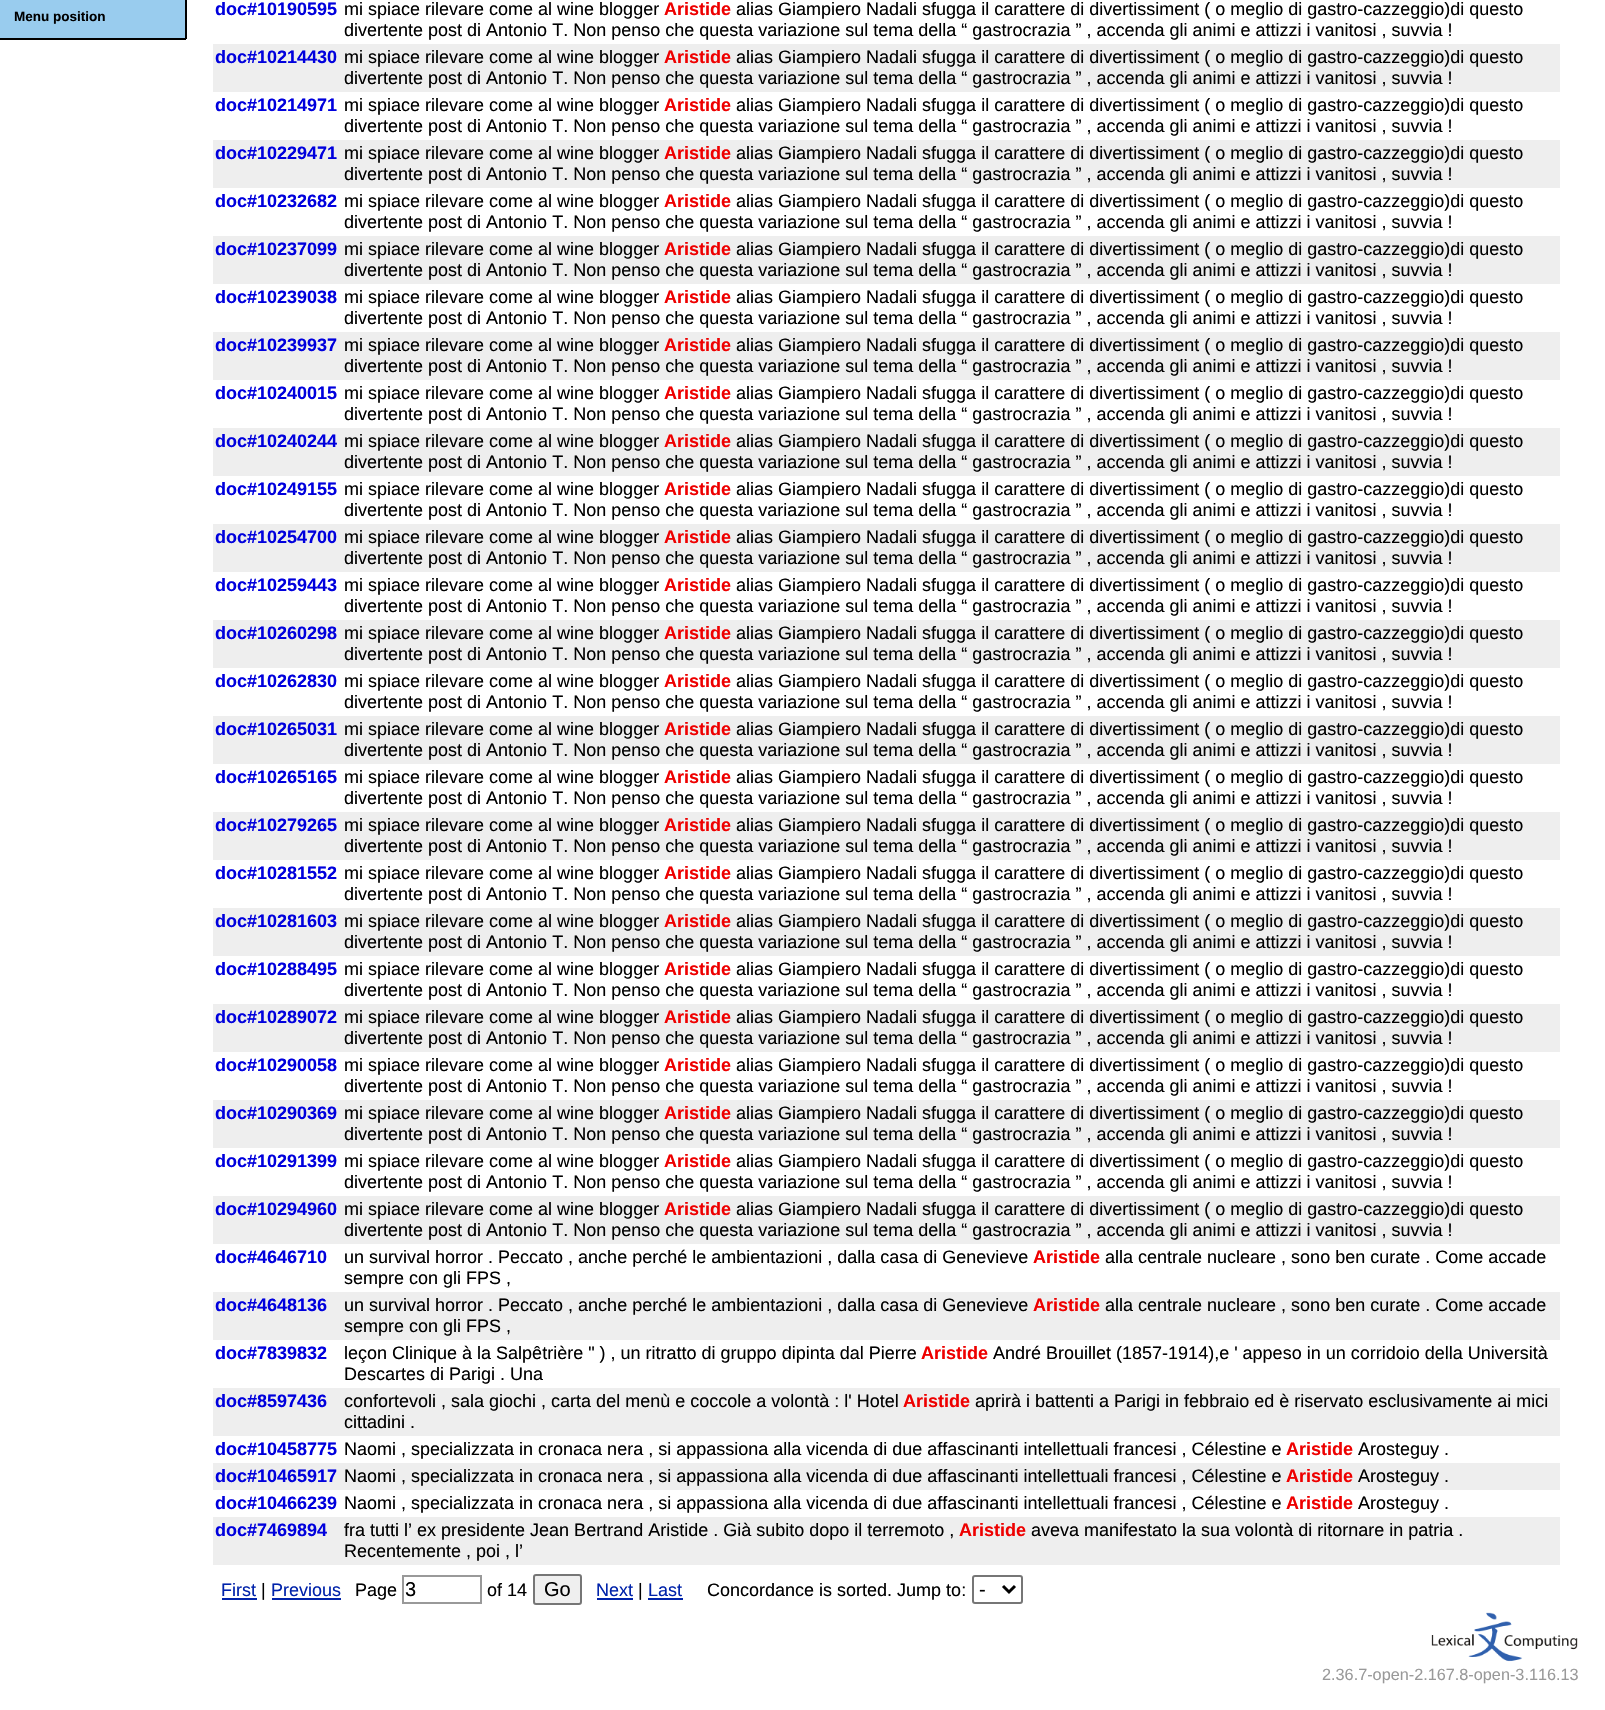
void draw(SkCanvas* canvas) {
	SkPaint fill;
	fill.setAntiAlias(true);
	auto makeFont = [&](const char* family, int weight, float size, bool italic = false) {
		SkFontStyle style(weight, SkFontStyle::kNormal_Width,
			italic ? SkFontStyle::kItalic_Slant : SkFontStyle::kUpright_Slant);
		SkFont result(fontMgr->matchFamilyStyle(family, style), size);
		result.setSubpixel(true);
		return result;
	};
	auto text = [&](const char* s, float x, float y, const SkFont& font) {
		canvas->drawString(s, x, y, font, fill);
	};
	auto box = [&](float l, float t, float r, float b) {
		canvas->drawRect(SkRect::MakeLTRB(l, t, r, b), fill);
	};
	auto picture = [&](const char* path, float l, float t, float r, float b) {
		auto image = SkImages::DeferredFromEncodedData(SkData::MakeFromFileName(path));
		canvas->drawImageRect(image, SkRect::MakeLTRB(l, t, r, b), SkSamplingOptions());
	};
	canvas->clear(0xFFFFFFFF);
	fill.setColor(0xFF99CCEE);
	box(0, 0, 185, 38);
	fill.setColor(0xFF000000);
	box(185, 0, 187, 39);
	box(0, 38, 186, 40);
	fill.setColor(0xFFEEEEEE);
	box(213, 44, 1560, 92);
	box(213, 140, 1560, 188);
	box(213, 236, 1560, 284);
	box(213, 332, 1560, 380);
	box(213, 428, 1560, 476);
	box(213, 524, 1560, 572);
	box(213, 620, 1560, 668);
	box(213, 716, 1560, 764);
	box(213, 812, 1560, 860);
	box(213, 908, 1560, 956);
	box(213, 1004, 1560, 1052);
	box(213, 1100, 1560, 1148);
	box(213, 1196, 1560, 1244);
	box(213, 1292, 1560, 1340);
	box(213, 1388, 1560, 1436);
	box(213, 1463, 1560, 1490);
	box(213, 1517, 1560, 1565);
	fill.setColor(0xFF0022AA);
	box(222, 1598, 257, 1600);
	box(272, 1598, 341, 1600);
	fill.setStyle(SkPaint::kStroke_Style);
	fill.setStrokeWidth(2);
	fill.setColor(0xFF999999);
	canvas->drawRect(SkRect::MakeLTRB(403, 1576, 481, 1603), fill);
	fill.setStyle(SkPaint::kFill_Style);
	fill.setColor(0xFFEFEFEF);
	canvas->drawRoundRect(SkRect::MakeLTRB(534, 1575, 581, 1604), 2, 2, fill);
	fill.setStyle(SkPaint::kStroke_Style);
	fill.setColor(0xFF767676);
	canvas->drawRoundRect(SkRect::MakeLTRB(534, 1575, 581, 1604), 2, 2, fill);
	fill.setStyle(SkPaint::kFill_Style);
	fill.setColor(0xFF0022AA);
	box(597, 1598, 633, 1600);
	box(648, 1598, 683, 1600);
	fill.setStyle(SkPaint::kStroke_Style);
	fill.setColor(0xFF767676);
	canvas->drawRoundRect(SkRect::MakeLTRB(973, 1576, 1022, 1603), 2, 2, fill);
	fill.setStrokeWidth(3);
	fill.setColor(0xFF000000);
	canvas->drawPath(SkPathBuilder().moveTo(1003, 1586).lineTo(1009, 1592).lineTo(1015, 1586).detach(), fill);
	picture("image0.png", 1431, 1612, 1578, 1662);
	auto font1 = makeFont("Liberation Sans", 700, 13.5f);
	fill.setStyle(SkPaint::kFill_Style);
	text("Menu position", 14, 21, font1);
	auto font2 = makeFont("Liberation Sans", 700, 18);
	fill.setColor(0xFF0000DD);
	text("doc#10190595", 215, 15, font2);
	auto font3 = makeFont("Liberation Sans", 400, 18);
	fill.setColor(0xFF000000);
	text("mi spiace rilevare come al wine blogger", 344, 15, font3);
	fill.setColor(0xFFEE0000);
	text("Aristide", 664, 15, font2);
	fill.setColor(0xFF000000);
	text("alias Giampiero Nadali sfugga il carattere di divertissiment ( o meglio di gastro-cazzeggio)di questo", 736, 15, font3);
	text("divertente post di Antonio T. Non penso che questa variazione sul tema della “ gastrocrazia ” , accenda gli animi e attizzi i vanitosi , suvvia !", 344, 36, font3);
	fill.setColor(0xFF0000DD);
	text("doc#10214430", 215, 63, font2);
	fill.setColor(0xFF000000);
	text("mi spiace rilevare come al wine blogger", 344, 63, font3);
	fill.setColor(0xFFEE0000);
	text("Aristide", 664, 63, font2);
	fill.setColor(0xFF000000);
	text("alias Giampiero Nadali sfugga il carattere di divertissiment ( o meglio di gastro-cazzeggio)di questo", 736, 63, font3);
	text("divertente post di Antonio T. Non penso che questa variazione sul tema della “ gastrocrazia ” , accenda gli animi e attizzi i vanitosi , suvvia !", 344, 84, font3);
	fill.setColor(0xFF0000DD);
	text("doc#10214971", 215, 111, font2);
	fill.setColor(0xFF000000);
	text("mi spiace rilevare come al wine blogger", 344, 111, font3);
	fill.setColor(0xFFEE0000);
	text("Aristide", 664, 111, font2);
	fill.setColor(0xFF000000);
	text("alias Giampiero Nadali sfugga il carattere di divertissiment ( o meglio di gastro-cazzeggio)di questo", 736, 111, font3);
	text("divertente post di Antonio T. Non penso che questa variazione sul tema della “ gastrocrazia ” , accenda gli animi e attizzi i vanitosi , suvvia !", 344, 132, font3);
	fill.setColor(0xFF0000DD);
	text("doc#10229471", 215, 159, font2);
	fill.setColor(0xFF000000);
	text("mi spiace rilevare come al wine blogger", 344, 159, font3);
	fill.setColor(0xFFEE0000);
	text("Aristide", 664, 159, font2);
	fill.setColor(0xFF000000);
	text("alias Giampiero Nadali sfugga il carattere di divertissiment ( o meglio di gastro-cazzeggio)di questo", 736, 159, font3);
	text("divertente post di Antonio T. Non penso che questa variazione sul tema della “ gastrocrazia ” , accenda gli animi e attizzi i vanitosi , suvvia !", 344, 180, font3);
	fill.setColor(0xFF0000DD);
	text("doc#10232682", 215, 207, font2);
	fill.setColor(0xFF000000);
	text("mi spiace rilevare come al wine blogger", 344, 207, font3);
	fill.setColor(0xFFEE0000);
	text("Aristide", 664, 207, font2);
	fill.setColor(0xFF000000);
	text("alias Giampiero Nadali sfugga il carattere di divertissiment ( o meglio di gastro-cazzeggio)di questo", 736, 207, font3);
	text("divertente post di Antonio T. Non penso che questa variazione sul tema della “ gastrocrazia ” , accenda gli animi e attizzi i vanitosi , suvvia !", 344, 228, font3);
	fill.setColor(0xFF0000DD);
	text("doc#10237099", 215, 255, font2);
	fill.setColor(0xFF000000);
	text("mi spiace rilevare come al wine blogger", 344, 255, font3);
	fill.setColor(0xFFEE0000);
	text("Aristide", 664, 255, font2);
	fill.setColor(0xFF000000);
	text("alias Giampiero Nadali sfugga il carattere di divertissiment ( o meglio di gastro-cazzeggio)di questo", 736, 255, font3);
	text("divertente post di Antonio T. Non penso che questa variazione sul tema della “ gastrocrazia ” , accenda gli animi e attizzi i vanitosi , suvvia !", 344, 276, font3);
	fill.setColor(0xFF0000DD);
	text("doc#10239038", 215, 303, font2);
	fill.setColor(0xFF000000);
	text("mi spiace rilevare come al wine blogger", 344, 303, font3);
	fill.setColor(0xFFEE0000);
	text("Aristide", 664, 303, font2);
	fill.setColor(0xFF000000);
	text("alias Giampiero Nadali sfugga il carattere di divertissiment ( o meglio di gastro-cazzeggio)di questo", 736, 303, font3);
	text("divertente post di Antonio T. Non penso che questa variazione sul tema della “ gastrocrazia ” , accenda gli animi e attizzi i vanitosi , suvvia !", 344, 324, font3);
	fill.setColor(0xFF0000DD);
	text("doc#10239937", 215, 351, font2);
	fill.setColor(0xFF000000);
	text("mi spiace rilevare come al wine blogger", 344, 351, font3);
	fill.setColor(0xFFEE0000);
	text("Aristide", 664, 351, font2);
	fill.setColor(0xFF000000);
	text("alias Giampiero Nadali sfugga il carattere di divertissiment ( o meglio di gastro-cazzeggio)di questo", 736, 351, font3);
	text("divertente post di Antonio T. Non penso che questa variazione sul tema della “ gastrocrazia ” , accenda gli animi e attizzi i vanitosi , suvvia !", 344, 372, font3);
	fill.setColor(0xFF0000DD);
	text("doc#10240015", 215, 399, font2);
	fill.setColor(0xFF000000);
	text("mi spiace rilevare come al wine blogger", 344, 399, font3);
	fill.setColor(0xFFEE0000);
	text("Aristide", 664, 399, font2);
	fill.setColor(0xFF000000);
	text("alias Giampiero Nadali sfugga il carattere di divertissiment ( o meglio di gastro-cazzeggio)di questo", 736, 399, font3);
	text("divertente post di Antonio T. Non penso che questa variazione sul tema della “ gastrocrazia ” , accenda gli animi e attizzi i vanitosi , suvvia !", 344, 420, font3);
	fill.setColor(0xFF0000DD);
	text("doc#10240244", 215, 447, font2);
	fill.setColor(0xFF000000);
	text("mi spiace rilevare come al wine blogger", 344, 447, font3);
	fill.setColor(0xFFEE0000);
	text("Aristide", 664, 447, font2);
	fill.setColor(0xFF000000);
	text("alias Giampiero Nadali sfugga il carattere di divertissiment ( o meglio di gastro-cazzeggio)di questo", 736, 447, font3);
	text("divertente post di Antonio T. Non penso che questa variazione sul tema della “ gastrocrazia ” , accenda gli animi e attizzi i vanitosi , suvvia !", 344, 468, font3);
	fill.setColor(0xFF0000DD);
	text("doc#10249155", 215, 495, font2);
	fill.setColor(0xFF000000);
	text("mi spiace rilevare come al wine blogger", 344, 495, font3);
	fill.setColor(0xFFEE0000);
	text("Aristide", 664, 495, font2);
	fill.setColor(0xFF000000);
	text("alias Giampiero Nadali sfugga il carattere di divertissiment ( o meglio di gastro-cazzeggio)di questo", 736, 495, font3);
	text("divertente post di Antonio T. Non penso che questa variazione sul tema della “ gastrocrazia ” , accenda gli animi e attizzi i vanitosi , suvvia !", 344, 516, font3);
	fill.setColor(0xFF0000DD);
	text("doc#10254700", 215, 543, font2);
	fill.setColor(0xFF000000);
	text("mi spiace rilevare come al wine blogger", 344, 543, font3);
	fill.setColor(0xFFEE0000);
	text("Aristide", 664, 543, font2);
	fill.setColor(0xFF000000);
	text("alias Giampiero Nadali sfugga il carattere di divertissiment ( o meglio di gastro-cazzeggio)di questo", 736, 543, font3);
	text("divertente post di Antonio T. Non penso che questa variazione sul tema della “ gastrocrazia ” , accenda gli animi e attizzi i vanitosi , suvvia !", 344, 564, font3);
	fill.setColor(0xFF0000DD);
	text("doc#10259443", 215, 591, font2);
	fill.setColor(0xFF000000);
	text("mi spiace rilevare come al wine blogger", 344, 591, font3);
	fill.setColor(0xFFEE0000);
	text("Aristide", 664, 591, font2);
	fill.setColor(0xFF000000);
	text("alias Giampiero Nadali sfugga il carattere di divertissiment ( o meglio di gastro-cazzeggio)di questo", 736, 591, font3);
	text("divertente post di Antonio T. Non penso che questa variazione sul tema della “ gastrocrazia ” , accenda gli animi e attizzi i vanitosi , suvvia !", 344, 612, font3);
	fill.setColor(0xFF0000DD);
	text("doc#10260298", 215, 639, font2);
	fill.setColor(0xFF000000);
	text("mi spiace rilevare come al wine blogger", 344, 639, font3);
	fill.setColor(0xFFEE0000);
	text("Aristide", 664, 639, font2);
	fill.setColor(0xFF000000);
	text("alias Giampiero Nadali sfugga il carattere di divertissiment ( o meglio di gastro-cazzeggio)di questo", 736, 639, font3);
	text("divertente post di Antonio T. Non penso che questa variazione sul tema della “ gastrocrazia ” , accenda gli animi e attizzi i vanitosi , suvvia !", 344, 660, font3);
	fill.setColor(0xFF0000DD);
	text("doc#10262830", 215, 687, font2);
	fill.setColor(0xFF000000);
	text("mi spiace rilevare come al wine blogger", 344, 687, font3);
	fill.setColor(0xFFEE0000);
	text("Aristide", 664, 687, font2);
	fill.setColor(0xFF000000);
	text("alias Giampiero Nadali sfugga il carattere di divertissiment ( o meglio di gastro-cazzeggio)di questo", 736, 687, font3);
	text("divertente post di Antonio T. Non penso che questa variazione sul tema della “ gastrocrazia ” , accenda gli animi e attizzi i vanitosi , suvvia !", 344, 708, font3);
	fill.setColor(0xFF0000DD);
	text("doc#10265031", 215, 735, font2);
	fill.setColor(0xFF000000);
	text("mi spiace rilevare come al wine blogger", 344, 735, font3);
	fill.setColor(0xFFEE0000);
	text("Aristide", 664, 735, font2);
	fill.setColor(0xFF000000);
	text("alias Giampiero Nadali sfugga il carattere di divertissiment ( o meglio di gastro-cazzeggio)di questo", 736, 735, font3);
	text("divertente post di Antonio T. Non penso che questa variazione sul tema della “ gastrocrazia ” , accenda gli animi e attizzi i vanitosi , suvvia !", 344, 756, font3);
	fill.setColor(0xFF0000DD);
	text("doc#10265165", 215, 783, font2);
	fill.setColor(0xFF000000);
	text("mi spiace rilevare come al wine blogger", 344, 783, font3);
	fill.setColor(0xFFEE0000);
	text("Aristide", 664, 783, font2);
	fill.setColor(0xFF000000);
	text("alias Giampiero Nadali sfugga il carattere di divertissiment ( o meglio di gastro-cazzeggio)di questo", 736, 783, font3);
	text("divertente post di Antonio T. Non penso che questa variazione sul tema della “ gastrocrazia ” , accenda gli animi e attizzi i vanitosi , suvvia !", 344, 804, font3);
	fill.setColor(0xFF0000DD);
	text("doc#10279265", 215, 831, font2);
	fill.setColor(0xFF000000);
	text("mi spiace rilevare come al wine blogger", 344, 831, font3);
	fill.setColor(0xFFEE0000);
	text("Aristide", 664, 831, font2);
	fill.setColor(0xFF000000);
	text("alias Giampiero Nadali sfugga il carattere di divertissiment ( o meglio di gastro-cazzeggio)di questo", 736, 831, font3);
	text("divertente post di Antonio T. Non penso che questa variazione sul tema della “ gastrocrazia ” , accenda gli animi e attizzi i vanitosi , suvvia !", 344, 852, font3);
	fill.setColor(0xFF0000DD);
	text("doc#10281552", 215, 879, font2);
	fill.setColor(0xFF000000);
	text("mi spiace rilevare come al wine blogger", 344, 879, font3);
	fill.setColor(0xFFEE0000);
	text("Aristide", 664, 879, font2);
	fill.setColor(0xFF000000);
	text("alias Giampiero Nadali sfugga il carattere di divertissiment ( o meglio di gastro-cazzeggio)di questo", 736, 879, font3);
	text("divertente post di Antonio T. Non penso che questa variazione sul tema della “ gastrocrazia ” , accenda gli animi e attizzi i vanitosi , suvvia !", 344, 900, font3);
	fill.setColor(0xFF0000DD);
	text("doc#10281603", 215, 927, font2);
	fill.setColor(0xFF000000);
	text("mi spiace rilevare come al wine blogger", 344, 927, font3);
	fill.setColor(0xFFEE0000);
	text("Aristide", 664, 927, font2);
	fill.setColor(0xFF000000);
	text("alias Giampiero Nadali sfugga il carattere di divertissiment ( o meglio di gastro-cazzeggio)di questo", 736, 927, font3);
	text("divertente post di Antonio T. Non penso che questa variazione sul tema della “ gastrocrazia ” , accenda gli animi e attizzi i vanitosi , suvvia !", 344, 948, font3);
	fill.setColor(0xFF0000DD);
	text("doc#10288495", 215, 975, font2);
	fill.setColor(0xFF000000);
	text("mi spiace rilevare come al wine blogger", 344, 975, font3);
	fill.setColor(0xFFEE0000);
	text("Aristide", 664, 975, font2);
	fill.setColor(0xFF000000);
	text("alias Giampiero Nadali sfugga il carattere di divertissiment ( o meglio di gastro-cazzeggio)di questo", 736, 975, font3);
	text("divertente post di Antonio T. Non penso che questa variazione sul tema della “ gastrocrazia ” , accenda gli animi e attizzi i vanitosi , suvvia !", 344, 996, font3);
	fill.setColor(0xFF0000DD);
	text("doc#10289072", 215, 1023, font2);
	fill.setColor(0xFF000000);
	text("mi spiace rilevare come al wine blogger", 344, 1023, font3);
	fill.setColor(0xFFEE0000);
	text("Aristide", 664, 1023, font2);
	fill.setColor(0xFF000000);
	text("alias Giampiero Nadali sfugga il carattere di divertissiment ( o meglio di gastro-cazzeggio)di questo", 736, 1023, font3);
	text("divertente post di Antonio T. Non penso che questa variazione sul tema della “ gastrocrazia ” , accenda gli animi e attizzi i vanitosi , suvvia !", 344, 1044, font3);
	fill.setColor(0xFF0000DD);
	text("doc#10290058", 215, 1071, font2);
	fill.setColor(0xFF000000);
	text("mi spiace rilevare come al wine blogger", 344, 1071, font3);
	fill.setColor(0xFFEE0000);
	text("Aristide", 664, 1071, font2);
	fill.setColor(0xFF000000);
	text("alias Giampiero Nadali sfugga il carattere di divertissiment ( o meglio di gastro-cazzeggio)di questo", 736, 1071, font3);
	text("divertente post di Antonio T. Non penso che questa variazione sul tema della “ gastrocrazia ” , accenda gli animi e attizzi i vanitosi , suvvia !", 344, 1092, font3);
	fill.setColor(0xFF0000DD);
	text("doc#10290369", 215, 1119, font2);
	fill.setColor(0xFF000000);
	text("mi spiace rilevare come al wine blogger", 344, 1119, font3);
	fill.setColor(0xFFEE0000);
	text("Aristide", 664, 1119, font2);
	fill.setColor(0xFF000000);
	text("alias Giampiero Nadali sfugga il carattere di divertissiment ( o meglio di gastro-cazzeggio)di questo", 736, 1119, font3);
	text("divertente post di Antonio T. Non penso che questa variazione sul tema della “ gastrocrazia ” , accenda gli animi e attizzi i vanitosi , suvvia !", 344, 1140, font3);
	fill.setColor(0xFF0000DD);
	text("doc#10291399", 215, 1167, font2);
	fill.setColor(0xFF000000);
	text("mi spiace rilevare come al wine blogger", 344, 1167, font3);
	fill.setColor(0xFFEE0000);
	text("Aristide", 664, 1167, font2);
	fill.setColor(0xFF000000);
	text("alias Giampiero Nadali sfugga il carattere di divertissiment ( o meglio di gastro-cazzeggio)di questo", 736, 1167, font3);
	text("divertente post di Antonio T. Non penso che questa variazione sul tema della “ gastrocrazia ” , accenda gli animi e attizzi i vanitosi , suvvia !", 344, 1188, font3);
	fill.setColor(0xFF0000DD);
	text("doc#10294960", 215, 1215, font2);
	fill.setColor(0xFF000000);
	text("mi spiace rilevare come al wine blogger", 344, 1215, font3);
	fill.setColor(0xFFEE0000);
	text("Aristide", 664, 1215, font2);
	fill.setColor(0xFF000000);
	text("alias Giampiero Nadali sfugga il carattere di divertissiment ( o meglio di gastro-cazzeggio)di questo", 736, 1215, font3);
	text("divertente post di Antonio T. Non penso che questa variazione sul tema della “ gastrocrazia ” , accenda gli animi e attizzi i vanitosi , suvvia !", 344, 1236, font3);
	fill.setColor(0xFF0000DD);
	text("doc#4646710", 215, 1263, font2);
	fill.setColor(0xFF000000);
	text("un survival horror . Peccato , anche perché le ambientazioni , dalla casa di Genevieve", 344, 1263, font3);
	fill.setColor(0xFFEE0000);
	text("Aristide", 1033, 1263, font2);
	fill.setColor(0xFF000000);
	text("alla centrale nucleare , sono ben curate . Come accade", 1105, 1263, font3);
	text("sempre con gli FPS ,", 344, 1284, font3);
	fill.setColor(0xFF0000DD);
	text("doc#4648136", 215, 1311, font2);
	fill.setColor(0xFF000000);
	text("un survival horror . Peccato , anche perché le ambientazioni , dalla casa di Genevieve", 344, 1311, font3);
	fill.setColor(0xFFEE0000);
	text("Aristide", 1033, 1311, font2);
	fill.setColor(0xFF000000);
	text("alla centrale nucleare , sono ben curate . Come accade", 1105, 1311, font3);
	text("sempre con gli FPS ,", 344, 1332, font3);
	fill.setColor(0xFF0000DD);
	text("doc#7839832", 215, 1359, font2);
	fill.setColor(0xFF000000);
	text("leçon Clinique à la Salpêtrière \" ) , un ritratto di gruppo dipinta dal Pierre", 344, 1359, font3);
	fill.setColor(0xFFEE0000);
	text("Aristide", 921, 1359, font2);
	fill.setColor(0xFF000000);
	text("André Brouillet (1857-1914),e ' appeso in un corridoio della Università", 993, 1359, font3);
	text("Descartes di Parigi . Una", 344, 1380, font3);
	fill.setColor(0xFF0000DD);
	text("doc#8597436", 215, 1407, font2);
	fill.setColor(0xFF000000);
	text("confortevoli , sala giochi , carta del menù e coccole a volontà : l' Hotel", 344, 1407, font3);
	fill.setColor(0xFFEE0000);
	text("Aristide", 903, 1407, font2);
	fill.setColor(0xFF000000);
	text("aprirà i battenti a Parigi in febbraio ed è riservato esclusivamente ai mici", 975, 1407, font3);
	text("cittadini .", 344, 1428, font3);
	fill.setColor(0xFF0000DD);
	text("doc#10458775", 215, 1455, font2);
	fill.setColor(0xFF000000);
	text("Naomi , specializzata in cronaca nera , si appassiona alla vicenda di due affascinanti intellettuali francesi , Célestine e", 344, 1455, font3);
	fill.setColor(0xFFEE0000);
	text("Aristide", 1286, 1455, font2);
	fill.setColor(0xFF000000);
	text("Arosteguy .", 1358, 1455, font3);
	fill.setColor(0xFF0000DD);
	text("doc#10465917", 215, 1482, font2);
	fill.setColor(0xFF000000);
	text("Naomi , specializzata in cronaca nera , si appassiona alla vicenda di due affascinanti intellettuali francesi , Célestine e", 344, 1482, font3);
	fill.setColor(0xFFEE0000);
	text("Aristide", 1286, 1482, font2);
	fill.setColor(0xFF000000);
	text("Arosteguy .", 1358, 1482, font3);
	fill.setColor(0xFF0000DD);
	text("doc#10466239", 215, 1509, font2);
	fill.setColor(0xFF000000);
	text("Naomi , specializzata in cronaca nera , si appassiona alla vicenda di due affascinanti intellettuali francesi , Célestine e", 344, 1509, font3);
	fill.setColor(0xFFEE0000);
	text("Aristide", 1286, 1509, font2);
	fill.setColor(0xFF000000);
	text("Arosteguy .", 1358, 1509, font3);
	fill.setColor(0xFF0000DD);
	text("doc#7469894", 215, 1536, font2);
	fill.setColor(0xFF000000);
	text("fra tutti l’ ex presidente Jean Bertrand Aristide . Già subito dopo il terremoto ,", 344, 1536, font3);
	fill.setColor(0xFFEE0000);
	text("Aristide", 959, 1536, font2);
	fill.setColor(0xFF000000);
	text("aveva manifestato la sua volontà di ritornare in patria .", 1031, 1536, font3);
	text("Recentemente , poi , l’", 344, 1557, font3);
	fill.setColor(0xFF0022AA);
	text("First", 221, 1596, font3);
	fill.setColor(0xFF000000);
	text("|", 261, 1596, font3);
	fill.setColor(0xFF0022AA);
	text("Previous", 271, 1596, font3);
	fill.setColor(0xFF000000);
	text("Page", 355, 1596, font3);
	auto font4 = makeFont("Liberation Sans", 400, 20);
	text("3", 405, 1596, font4);
	text("of 14", 487, 1596, font3);
	text("Go", 544, 1596, font4);
	fill.setColor(0xFF0022AA);
	text("Next", 596, 1596, font3);
	fill.setColor(0xFF000000);
	text("|", 638, 1596, font3);
	fill.setColor(0xFF0022AA);
	text("Last", 648, 1596, font3);
	fill.setColor(0xFF000000);
	text("Concordance is sorted. Jump to:", 707, 1596, font3);
	text("-", 979, 1596, font4);
	auto font5 = makeFont("Liberation Sans", 400, 16.25f);
	fill.setColor(0xFF999999);
	text("2.36.7-open-2.167.8-open-3.116.13", 1322, 1680, font5);
}
